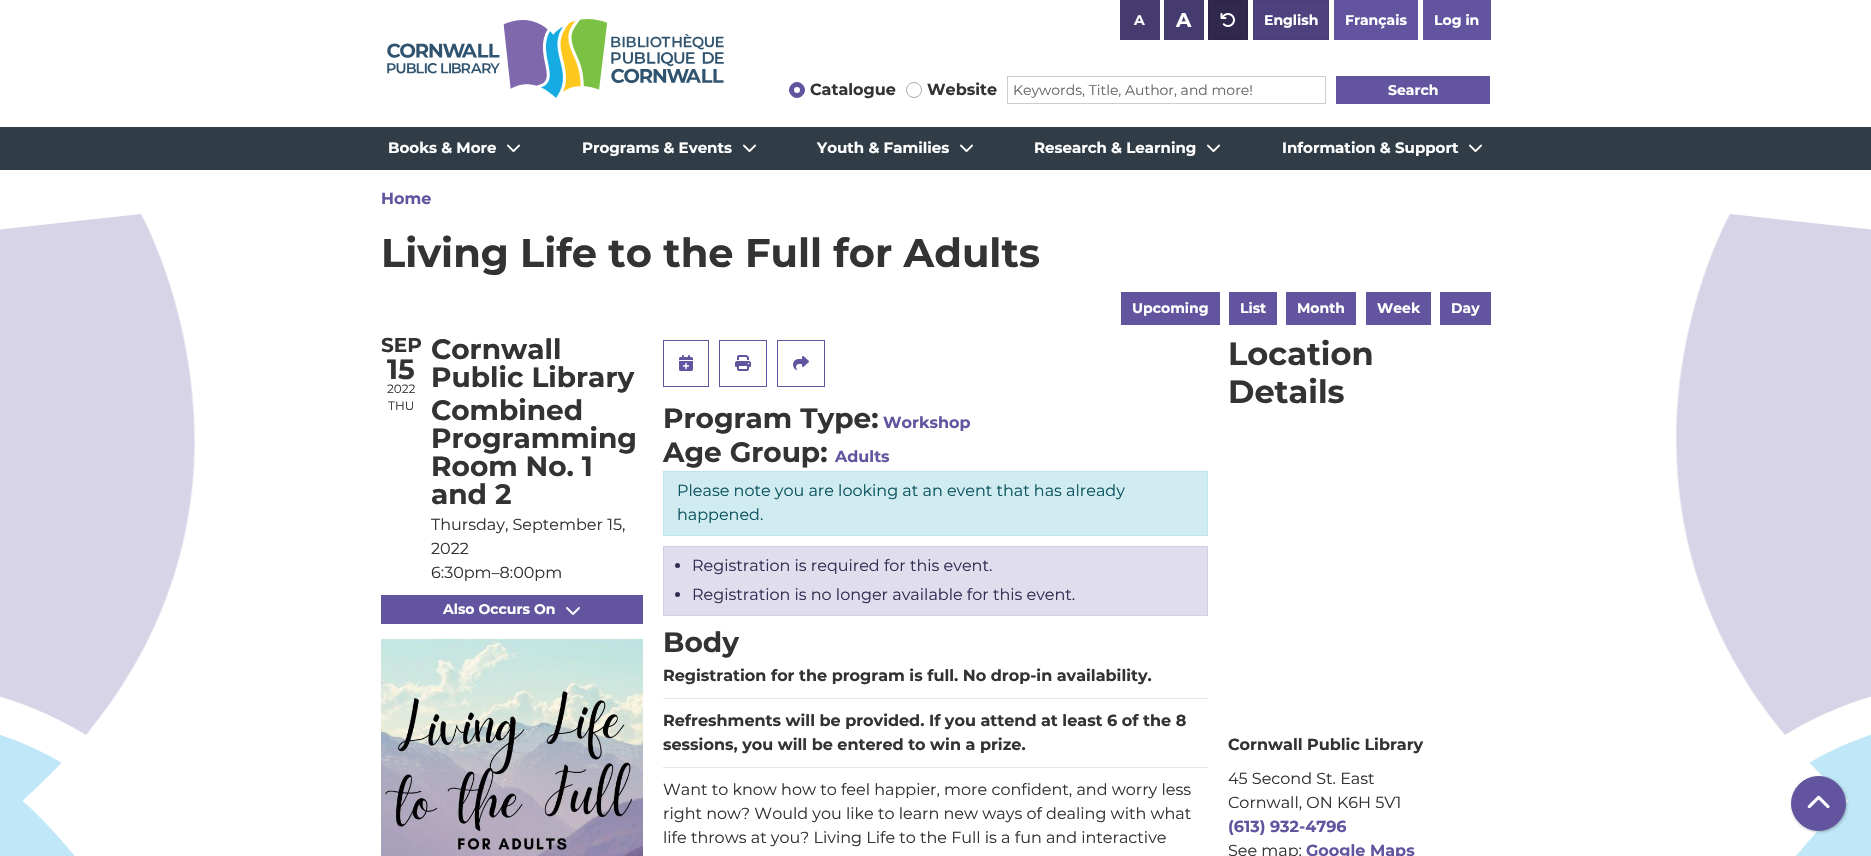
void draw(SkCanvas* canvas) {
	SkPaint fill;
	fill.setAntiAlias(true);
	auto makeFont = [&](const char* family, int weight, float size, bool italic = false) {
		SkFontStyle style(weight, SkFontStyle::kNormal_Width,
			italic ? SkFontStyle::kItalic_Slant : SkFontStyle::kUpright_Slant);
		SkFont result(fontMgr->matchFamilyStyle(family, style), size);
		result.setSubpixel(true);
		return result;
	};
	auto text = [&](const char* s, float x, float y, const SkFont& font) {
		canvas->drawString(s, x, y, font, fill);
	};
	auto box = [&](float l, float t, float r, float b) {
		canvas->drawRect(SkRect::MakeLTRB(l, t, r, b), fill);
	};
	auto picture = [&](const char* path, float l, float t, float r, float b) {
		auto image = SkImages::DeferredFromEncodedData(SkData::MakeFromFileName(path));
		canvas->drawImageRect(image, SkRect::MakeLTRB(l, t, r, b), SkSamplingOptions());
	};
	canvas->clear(0xFFFFFFFF);
	picture("image0.png", 387, 19, 724, 98);
	fill.setColor(0xFF463B6E);
	box(1120, 0, 1160, 40);
	box(1164, 0, 1204, 40);
	fill.setColor(0xFF31294D);
	canvas->drawRect(SkRect::MakeLTRB(1208.5f, 0.5f, 1247.5f, 39.5f), fill);
	fill.setStyle(SkPaint::kStroke_Style);
	fill.setStrokeWidth(1);
	fill.setColor(0xFF2C2545);
	canvas->drawRect(SkRect::MakeLTRB(1208.5f, 0.5f, 1247.5f, 39.5f), fill);
	picture("image1.png", 1220, 13, 1235, 27);
	fill.setStyle(SkPaint::kFill_Style);
	fill.setColor(0xFF4E427E);
	canvas->drawRect(SkRect::MakeLTRB(1253.5f, 0.5f, 1328.5f, 39.5f), fill);
	fill.setStyle(SkPaint::kStroke_Style);
	fill.setColor(0xFF493E75);
	canvas->drawRect(SkRect::MakeLTRB(1253.5f, 0.5f, 1328.5f, 39.5f), fill);
	fill.setStyle(SkPaint::kFill_Style);
	fill.setColor(0xFF63549F);
	box(1334, 0, 1418, 40);
	box(1423, 0, 1491, 40);
	canvas->drawCircle(797, 90, 7.5f, fill);
	fill.setStyle(SkPaint::kStroke_Style);
	canvas->drawCircle(797, 90, 7.5f, fill);
	fill.setStyle(SkPaint::kFill_Style);
	fill.setColor(0xFFFFFFFF);
	canvas->drawCircle(797, 90, 3, fill);
	fill.setStyle(SkPaint::kStroke_Style);
	fill.setColor(0xFFAAAAAA);
	canvas->drawCircle(914, 90, 7.5f, fill);
	fill.setColor(0xFFCCCCCC);
	canvas->drawRect(SkRect::MakeLTRB(1007.5f, 76.5f, 1325.5f, 103.5f), fill);
	fill.setStyle(SkPaint::kFill_Style);
	fill.setColor(0xFF63549F);
	box(1336, 76, 1490, 104);
	fill.setColor(0xFF313D46);
	box(0, 127, 1871, 170);
	picture("image2.png", 507, 144, 520, 152);
	picture("image2.png", 743, 144, 756, 152);
	picture("image2.png", 960, 144, 973, 152);
	picture("image2.png", 1207, 144, 1220, 152);
	picture("image2.png", 1469, 144, 1482, 152);
	picture("image3.png", 0, 214, 1871, 856);
	fill.setColor(0xFF63549F);
	box(1121, 292, 1220, 325);
	box(1229, 292, 1277, 325);
	box(1286, 292, 1356, 325);
	box(1366, 292, 1431, 325);
	box(1440, 292, 1491, 325);
	box(381, 595, 643, 624);
	picture("image4.png", 566, 607, 580, 615);
	picture("image5.png", 381, 639, 643, 856);
	fill.setStyle(SkPaint::kStroke_Style);
	canvas->drawRect(SkRect::MakeLTRB(663.5f, 340.5f, 708.5f, 386.5f), fill);
	picture("image6.png", 679, 355, 693, 371);
	canvas->drawRect(SkRect::MakeLTRB(719.5f, 340.5f, 766.5f, 386.5f), fill);
	picture("image7.png", 735, 355, 751, 371);
	canvas->drawRect(SkRect::MakeLTRB(777.5f, 340.5f, 824.5f, 386.5f), fill);
	picture("image8.png", 793, 356, 809, 370);
	fill.setStyle(SkPaint::kFill_Style);
	fill.setColor(0xFFD1ECF1);
	canvas->drawRect(SkRect::MakeLTRB(663.5f, 471.5f, 1207.5f, 535.5f), fill);
	fill.setStyle(SkPaint::kStroke_Style);
	fill.setColor(0xFFBEE5EB);
	canvas->drawRect(SkRect::MakeLTRB(663.5f, 471.5f, 1207.5f, 535.5f), fill);
	fill.setStyle(SkPaint::kFill_Style);
	fill.setColor(0xFFE0DDEC);
	canvas->drawRect(SkRect::MakeLTRB(663.5f, 546.5f, 1207.5f, 615.5f), fill);
	fill.setStyle(SkPaint::kStroke_Style);
	fill.setColor(0xFFD3CFE4);
	canvas->drawRect(SkRect::MakeLTRB(663.5f, 546.5f, 1207.5f, 615.5f), fill);
	fill.setStyle(SkPaint::kFill_Style);
	fill.setColor(0xFF332C53);
	canvas->drawCircle(677.5f, 565.5f, 2.5f, fill);
	canvas->drawCircle(677.5f, 594.5f, 2.5f, fill);
	fill.setColor(0xFFE6E6E6);
	box(663, 698, 1208, 699);
	box(663, 767, 1208, 768);
	fill.setColor(0x40000000);
	fill.setMaskFilter(SkMaskFilter::MakeBlur(kNormal_SkBlurStyle, 1.5f));
	canvas->drawRoundRect(SkRect::MakeLTRB(1792, 777, 1847, 832), 27.5f, 27.5f, fill);
	fill.setMaskFilter(nullptr);
	fill.setColor(0xFF63549F);
	canvas->drawCircle(1818.5f, 803.5f, 27, fill);
	fill.setStyle(SkPaint::kStroke_Style);
	canvas->drawCircle(1818.5f, 803.5f, 27, fill);
	picture("image9.png", 1807, 795, 1830, 809);
	auto font1 = makeFont("Montserrat", 700, 14);
	fill.setStyle(SkPaint::kFill_Style);
	fill.setColor(0xFFFFFFFF);
	text("A", 1134, 25, font1);
	auto font2 = makeFont("Montserrat", 700, 20);
	text("A", 1176, 27, font2);
	text("English", 1264, 25, font1);
	text("Français", 1345, 25, font1);
	text("Log in", 1434, 25, font1);
	auto font3 = makeFont("Montserrat", 700, 16);
	fill.setColor(0xFF333333);
	text("Catalogue", 810, 95, font3);
	text("Website", 927, 95, font3);
	auto font4 = makeFont("Montserrat", 400, 14);
	fill.setColor(0xFF666666);
	text("Keywords, Title, Author, and more!", 1013, 95, font4);
	fill.setColor(0xFFFFFFFF);
	text("Search", 1388, 95, font1);
	auto font5 = makeFont("Montserrat", 700, 15);
	text("Books & More", 388, 153, font5);
	text("Programs & Events", 582, 153, font5);
	text("Youth & Families", 817, 153, font5);
	text("Research & Learning", 1034, 153, font5);
	text("Information & Support", 1282, 153, font5);
	fill.setColor(0xFF63549F);
	text("Home", 381, 204, font3);
	auto font6 = makeFont("Montserrat", 700, 40);
	fill.setColor(0xFF333333);
	text("Living Life to the Full for Adults", 381, 267, font6);
	fill.setColor(0xFFFFFFFF);
	text("Upcoming", 1132, 313, font1);
	text("List", 1240, 313, font1);
	text("Month", 1297, 313, font1);
	text("Week", 1377, 313, font1);
	text("Day", 1451, 313, font1);
	fill.setColor(0xFF333333);
	text("SEP", 381, 352, font2);
	auto font7 = makeFont("Montserrat", 700, 28);
	text("15", 387, 379, font7);
	auto font8 = makeFont("Montserrat", 400, 12);
	text("2022", 387, 393, font8);
	text("THU", 388, 410, font8);
	text("Cornwall", 431, 359, font7);
	text("Public Library", 431, 387, font7);
	text("Combined", 431, 420, font7);
	text("Programming", 431, 448, font7);
	text("Room No. 1", 431, 476, font7);
	text("and 2", 431, 504, font7);
	auto font9 = makeFont("Montserrat", 400, 16);
	text("Thursday, September 15,", 431, 530, font9);
	text("2022", 431, 554, font9);
	text("6:30pm–8:00pm", 431, 578, font9);
	fill.setColor(0xFFFFFFFF);
	text("Also Occurs On", 443, 614, font1);
	fill.setColor(0xFF333333);
	text("Program Type:", 663, 428, font7);
	fill.setColor(0xFF63549F);
	text("Workshop", 883, 428, font3);
	fill.setColor(0xFF333333);
	text("Age Group:", 663, 462, font7);
	fill.setColor(0xFF63549F);
	text("Adults", 835, 462, font3);
	fill.setColor(0xFF0C5460);
	text("Please note you are looking at an event that has already", 677, 496, font9);
	text("happened.", 677, 520, font9);
	fill.setColor(0xFF332C53);
	text("Registration is required for this event.", 692, 571, font9);
	text("Registration is no longer available for this event.", 692, 600, font9);
	fill.setColor(0xFF333333);
	text("Body", 663, 652, font7);
	text("Registration for the program is full. No drop-in availability.", 663, 681, font3);
	text("Refreshments will be provided. If you attend at least 6 of the 8", 663, 726, font3);
	text("sessions, you will be entered to win a prize.", 663, 750, font3);
	text("Want to know how to feel happier, more confident, and worry less", 663, 795, font9);
	text("right now? Would you like to learn new ways of dealing with what", 663, 819, font9);
	text("life throws at you? Living Life to the Full is a fun and interactive", 663, 843, font9);
	auto font10 = makeFont("Montserrat", 700, 32);
	text("Location", 1228, 365, font10);
	text("Details", 1228, 403, font10);
	text("Cornwall Public Library", 1228, 750, font3);
	text("45 Second St. East", 1228, 784, font9);
	text("Cornwall, ON K6H 5V1", 1228, 808, font9);
	fill.setColor(0xFF63549F);
	text("(613) 932-4796", 1228, 832, font3);
	fill.setColor(0xFF333333);
	text("See map:", 1228, 856, font9);
	fill.setColor(0xFF63549F);
	text("Google Maps", 1306, 856, font3);
}
